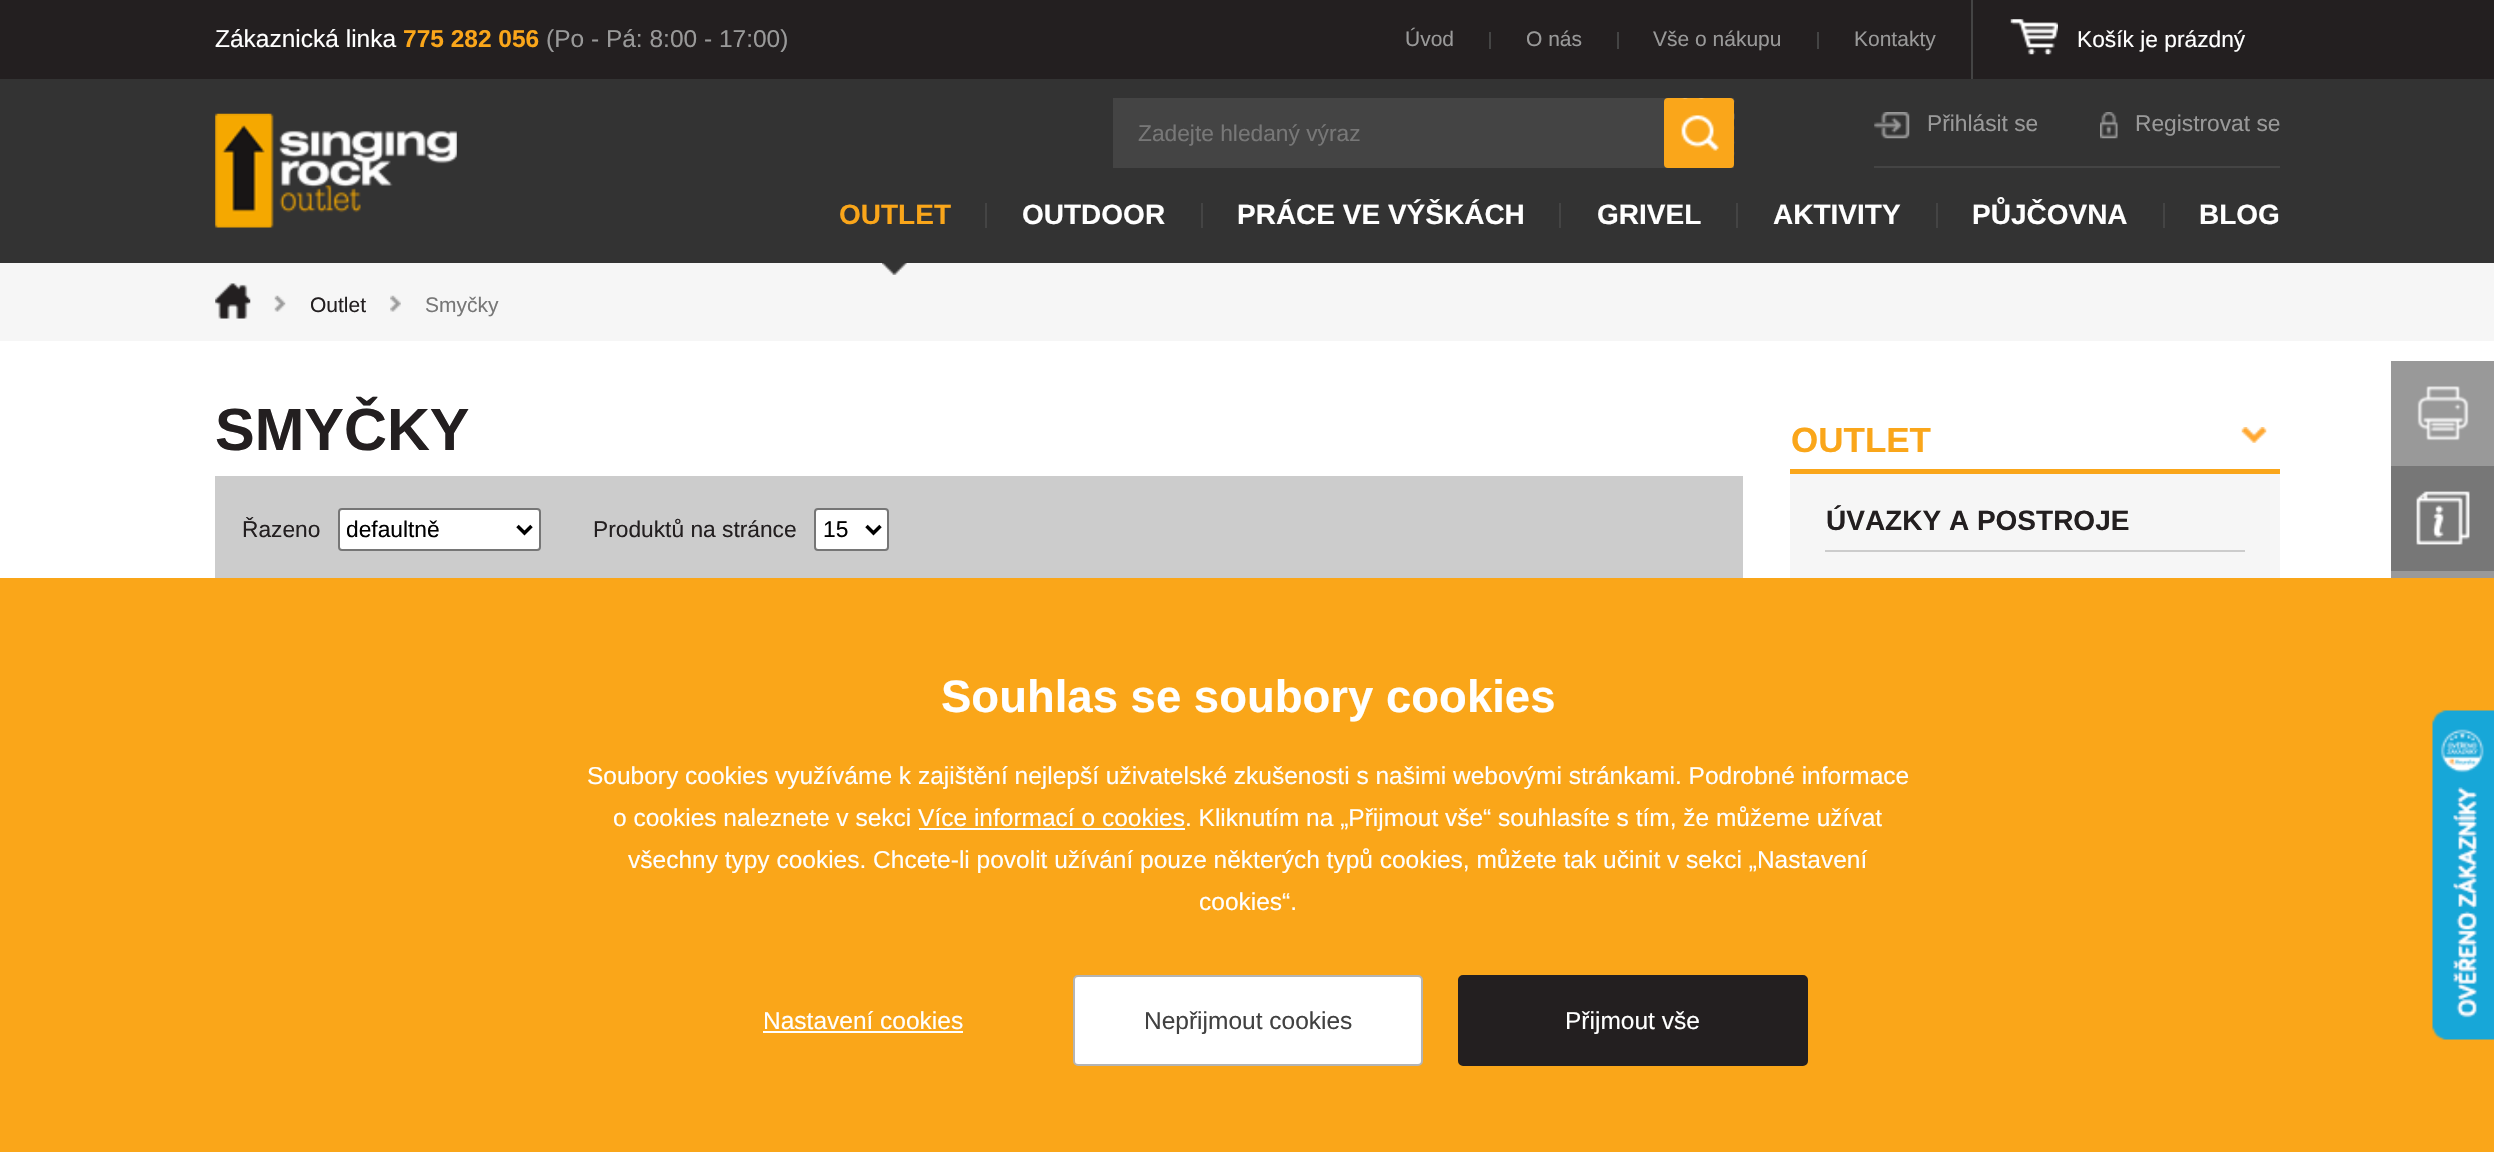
void draw(SkCanvas* canvas) {
	SkPaint fill;
	fill.setAntiAlias(true);
	auto makeFont = [&](const char* family, int weight, float size, bool italic = false) {
		SkFontStyle style(weight, SkFontStyle::kNormal_Width,
			italic ? SkFontStyle::kItalic_Slant : SkFontStyle::kUpright_Slant);
		SkFont result(fontMgr->matchFamilyStyle(family, style), size);
		result.setSubpixel(true);
		return result;
	};
	auto text = [&](const char* s, float x, float y, const SkFont& font) {
		canvas->drawString(s, x, y, font, fill);
	};
	auto box = [&](float l, float t, float r, float b) {
		canvas->drawRect(SkRect::MakeLTRB(l, t, r, b), fill);
	};
	auto roundBox = [&](float l, float t, float r, float b, float radius) {
		canvas->drawRoundRect(SkRect::MakeLTRB(l, t, r, b), radius, radius, fill);
	};
	auto picture = [&](const char* path, float l, float t, float r, float b) {
		auto image = SkImages::DeferredFromEncodedData(SkData::MakeFromFileName(path));
		canvas->drawImageRect(image, SkRect::MakeLTRB(l, t, r, b), SkSamplingOptions());
	};
	canvas->clear(0xFFFFFFFF);
	fill.setColor(0xFF333333);
	box(0, 79, 2494, 263);
	fill.setColor(0xFF231F20);
	box(0, 0, 2494, 79);
	fill.setColor(0xFF444444);
	box(1489, 32, 1491, 49);
	box(1617, 32, 1619, 49);
	box(1817, 32, 1819, 49);
	box(1971, 0, 1973, 79);
	picture("image0.png", 2010, 19, 2058, 55);
	picture("image1.png", 215, 113, 457, 228);
	box(1113, 98, 1734, 168);
	fill.setColor(0xFFFAA61A);
	roundBox(1664, 98, 1734, 168, 4);
	picture("image2.png", 1681, 98, 1735, 168);
	fill.setColor(0xFF444444);
	box(1874, 166, 2280, 168);
	picture("image3.png", 1874, 112, 1910, 139);
	picture("image4.png", 2100, 112, 2118, 139);
	fill.setColor(0xFFF6F6F6);
	box(0, 263, 2494, 341);
	picture("image5.png", 882, 262, 907, 275);
	fill.setColor(0xFF444444);
	box(985, 203, 987, 228);
	box(1201, 203, 1203, 228);
	box(1559, 203, 1561, 228);
	box(1736, 203, 1738, 228);
	box(1936, 203, 1938, 228);
	box(2163, 203, 2165, 228);
	picture("image6.png", 215, 283, 251, 319);
	picture("image7.png", 274, 295, 286, 312);
	picture("image8.png", 390, 295, 401, 312);
	fill.setColor(0xFFCCCCCC);
	box(215, 476, 1743, 578);
	fill.setColor(0xFFFFFFFF);
	canvas->drawRoundRect(SkRect::MakeLTRB(339, 509, 540, 550), 3, 3, fill);
	fill.setStyle(SkPaint::kStroke_Style);
	fill.setStrokeWidth(2);
	fill.setColor(0xFF767676);
	canvas->drawRoundRect(SkRect::MakeLTRB(339, 509, 540, 550), 3, 3, fill);
	fill.setStrokeWidth(3.5f);
	fill.setColor(0xFF000000);
	canvas->drawPath(SkPathBuilder().moveTo(517.5f, 526).lineTo(524.5f, 533).lineTo(531.5f, 526).detach(), fill);
	fill.setStyle(SkPaint::kFill_Style);
	fill.setColor(0xFFFFFFFF);
	canvas->drawRoundRect(SkRect::MakeLTRB(815, 509, 888, 550), 3, 3, fill);
	fill.setStyle(SkPaint::kStroke_Style);
	fill.setStrokeWidth(2);
	fill.setColor(0xFF767676);
	canvas->drawRoundRect(SkRect::MakeLTRB(815, 509, 888, 550), 3, 3, fill);
	fill.setStrokeWidth(3.5f);
	fill.setColor(0xFF000000);
	canvas->drawPath(SkPathBuilder().moveTo(866.5f, 526).lineTo(873.5f, 533).lineTo(880.5f, 526).detach(), fill);
	fill.setStyle(SkPaint::kFill_Style);
	fill.setColor(0xFFFAA61A);
	box(1790, 469, 2280, 474);
	picture("image9.png", 2241, 427, 2267, 443);
	fill.setColor(0xFFF6F6F6);
	box(1790, 474, 2280, 578);
	fill.setColor(0xFFCCCCCC);
	box(1825, 550, 2245, 552);
	fill.setColor(0xFF999999);
	box(2391, 361, 2494, 578);
	picture("image10.png", 2417, 386, 2469, 441);
	fill.setColor(0xFF777777);
	box(2391, 466, 2494, 571);
	picture("image11.png", 2416, 491, 2470, 545);
	fill.setColor(0xFFFAA619);
	box(0, 578, 2494, 1152);
	fill.setColor(0xFFFFFFFF);
	box(919, 828, 1185, 830);
	box(763, 1031, 963, 1033);
	canvas->drawRoundRect(SkRect::MakeLTRB(1074, 976, 1422, 1065), 4, 4, fill);
	fill.setStyle(SkPaint::kStroke_Style);
	fill.setStrokeWidth(2);
	fill.setColor(0xFFB4B4B4);
	canvas->drawRoundRect(SkRect::MakeLTRB(1074, 976, 1422, 1065), 4, 4, fill);
	fill.setStyle(SkPaint::kFill_Style);
	fill.setColor(0xFF231F20);
	canvas->drawRoundRect(SkRect::MakeLTRB(1459, 976, 1807, 1065), 4, 4, fill);
	fill.setStyle(SkPaint::kStroke_Style);
	canvas->drawRoundRect(SkRect::MakeLTRB(1459, 976, 1807, 1065), 4, 4, fill);
	picture("image12.png", 2432, 710, 2494, 1040);
	auto font1 = makeFont("Liberation Sans", 400, 24.5f);
	fill.setStyle(SkPaint::kFill_Style);
	fill.setColor(0xFFFFFFFF);
	text("Zákaznická linka", 215, 47, font1);
	auto font2 = makeFont("Liberation Sans", 700, 24.5f);
	fill.setColor(0xFFFAA61A);
	text("775 282 056", 403, 47, font2);
	fill.setColor(0xFF999999);
	text("(Po - Pá: 8:00 - 17:00)", 546, 47, font1);
	auto font3 = makeFont("Liberation Sans", 400, 21);
	text("Úvod", 1405, 46, font3);
	text("O nás", 1526, 46, font3);
	text("Vše o nákupu", 1653, 46, font3);
	text("Kontakty", 1854, 46, font3);
	auto font4 = makeFont("Liberation Sans", 400, 22.75f);
	fill.setColor(0xFFFFFFFF);
	text("Košík je prázdný", 2077, 47, font4);
	fill.setColor(0xFF777777);
	text("Zadejte hledaný výraz", 1138, 141, font4);
	fill.setColor(0xFF999999);
	text("Přihlásit se", 1927, 131, font4);
	text("Registrovat se", 2135, 131, font4);
	auto font5 = makeFont("Liberation Sans", 700, 28);
	fill.setColor(0xFFFAA61A);
	text("OUTLET", 839, 224, font5);
	fill.setColor(0xFFFFFFFF);
	text("OUTDOOR", 1022, 224, font5);
	text("PRÁCE VE VÝŠKÁCH", 1237, 224, font5);
	text("GRIVEL", 1597, 224, font5);
	text("AKTIVITY", 1773, 224, font5);
	text("PŮJČOVNA", 1972, 224, font5);
	text("BLOG", 2199, 224, font5);
	fill.setColor(0xFF231F20);
	text("Outlet", 310, 312, font3);
	fill.setColor(0xFF777777);
	text("Smyčky", 425, 312, font3);
	auto font6 = makeFont("Liberation Sans", 700, 59.5f);
	fill.setColor(0xFF231F20);
	text("SMYČKY", 215, 450, font6);
	text("Řazeno", 242, 537, font4);
	fill.setColor(0xFF000000);
	text("defaultně", 346, 537, font4);
	fill.setColor(0xFF231F20);
	text("Produktů na stránce", 593, 537, font4);
	fill.setColor(0xFF000000);
	text("15", 823, 537, font4);
	auto font7 = makeFont("Liberation Sans", 700, 35);
	fill.setColor(0xFFFAA61A);
	text("OUTLET", 1791, 452, font7);
	fill.setColor(0xFF231F20);
	text("ÚVAZKY A POSTROJE", 1826, 530, font5);
	auto font8 = makeFont("Liberation Sans", 700, 45.5f);
	fill.setColor(0xFFFFFFFF);
	text("Souhlas se soubory cookies", 941, 712, font8);
	text("Soubory cookies využíváme k zajištění nejlepší uživatelské zkušenosti s našimi webovými stránkami. Podrobné informace", 587, 784, font1);
	text("o cookies naleznete v sekci Více informací o cookies. Kliknutím na „Přijmout vše“ souhlasíte s tím, že můžeme užívat", 613, 826, font1);
	text("všechny typy cookies. Chcete-li povolit užívání pouze některých typů cookies, můžete tak učinit v sekci „Nastavení", 628, 868, font1);
	text("cookies“.", 1199, 910, font1);
	text("Nastavení cookies", 763, 1029, font1);
	fill.setColor(0xFF414141);
	text("Nepřijmout cookies", 1144, 1029, font1);
	fill.setColor(0xFFFFFFFF);
	text("Přijmout vše", 1565, 1029, font1);
}
